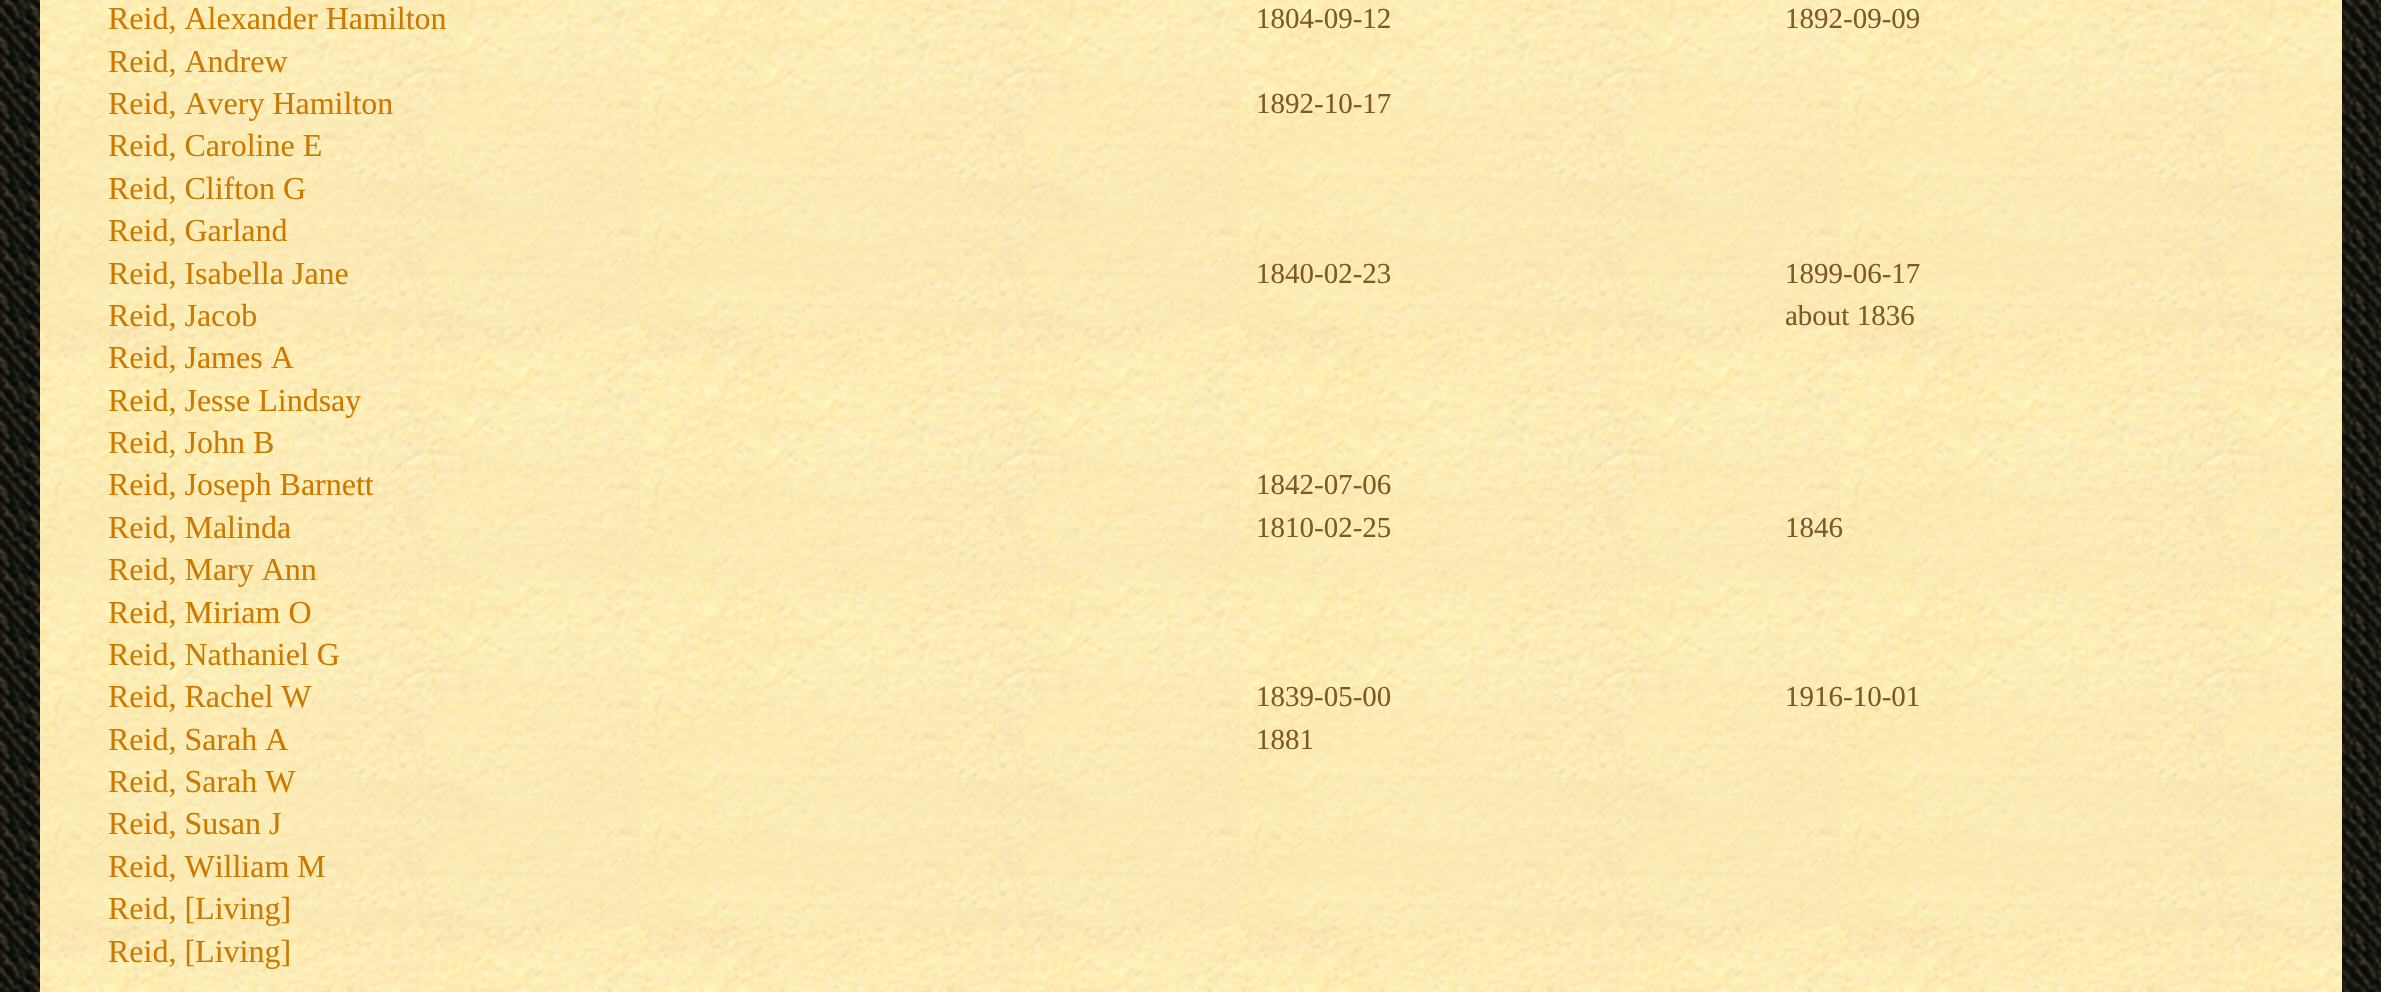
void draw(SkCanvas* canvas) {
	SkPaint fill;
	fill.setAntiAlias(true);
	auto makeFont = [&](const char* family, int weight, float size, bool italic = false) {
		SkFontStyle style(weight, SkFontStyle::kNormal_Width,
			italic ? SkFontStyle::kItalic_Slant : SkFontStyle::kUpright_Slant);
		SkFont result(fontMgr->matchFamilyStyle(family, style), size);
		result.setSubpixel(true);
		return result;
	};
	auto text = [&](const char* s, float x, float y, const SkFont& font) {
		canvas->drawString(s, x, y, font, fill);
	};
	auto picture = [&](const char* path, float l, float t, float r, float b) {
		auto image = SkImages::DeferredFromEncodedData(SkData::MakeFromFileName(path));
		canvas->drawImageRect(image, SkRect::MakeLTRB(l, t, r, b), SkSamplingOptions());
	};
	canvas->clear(0xFFFFFFFF);
	picture("image0.png", 0, 0, 2381, 992);
	picture("image1.png", 40, 0, 2342, 992);
	auto font1 = makeFont("Liberation Serif", 400, 32);
	fill.setColor(0xFFCC7900);
	text("Reid, Alexander Hamilton", 108, 29, font1);
	auto font2 = makeFont("Liberation Serif", 400, 29);
	fill.setColor(0xFF7D5925);
	text("1804-09-12", 1256, 28, font2);
	text("1892-09-09", 1785, 28, font2);
	fill.setColor(0xFFCC7900);
	text("Reid, Andrew", 108, 72, font1);
	text("Reid, Avery Hamilton", 108, 114, font1);
	fill.setColor(0xFF7D5925);
	text("1892-10-17", 1256, 113, font2);
	fill.setColor(0xFFCC7900);
	text("Reid, Caroline E", 108, 156, font1);
	text("Reid, Clifton G", 108, 199, font1);
	text("Reid, Garland", 108, 241, font1);
	text("Reid, Isabella Jane", 108, 284, font1);
	fill.setColor(0xFF7D5925);
	text("1840-02-23", 1256, 283, font2);
	text("1899-06-17", 1785, 283, font2);
	fill.setColor(0xFFCC7900);
	text("Reid, Jacob", 108, 326, font1);
	fill.setColor(0xFF7D5925);
	text("about 1836", 1785, 325, font2);
	fill.setColor(0xFFCC7900);
	text("Reid, James A", 108, 368, font1);
	text("Reid, Jesse Lindsay", 108, 411, font1);
	text("Reid, John B", 108, 453, font1);
	text("Reid, Joseph Barnett", 108, 495, font1);
	fill.setColor(0xFF7D5925);
	text("1842-07-06", 1256, 494, font2);
	fill.setColor(0xFFCC7900);
	text("Reid, Malinda", 108, 538, font1);
	fill.setColor(0xFF7D5925);
	text("1810-02-25", 1256, 537, font2);
	text("1846", 1785, 537, font2);
	fill.setColor(0xFFCC7900);
	text("Reid, Mary Ann", 108, 580, font1);
	text("Reid, Miriam O", 108, 623, font1);
	text("Reid, Nathaniel G", 108, 665, font1);
	text("Reid, Rachel W", 108, 707, font1);
	fill.setColor(0xFF7D5925);
	text("1839-05-00", 1256, 706, font2);
	text("1916-10-01", 1785, 706, font2);
	fill.setColor(0xFFCC7900);
	text("Reid, Sarah A", 108, 750, font1);
	fill.setColor(0xFF7D5925);
	text("1881", 1256, 749, font2);
	fill.setColor(0xFFCC7900);
	text("Reid, Sarah W", 108, 792, font1);
	text("Reid, Susan J", 108, 834, font1);
	text("Reid, William M", 108, 877, font1);
	text("Reid, [Living]", 108, 919, font1);
	text("Reid, [Living]", 108, 962, font1);
}
